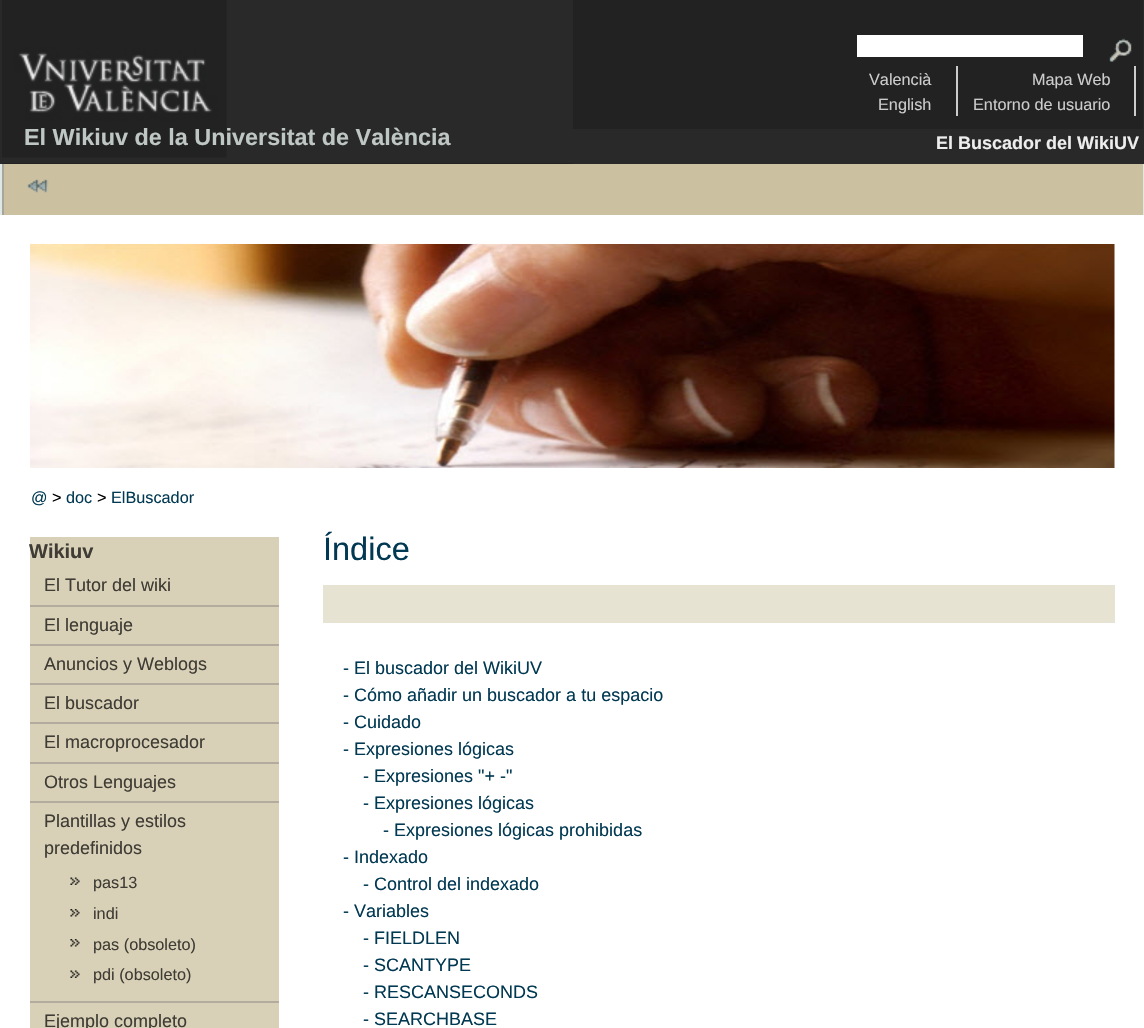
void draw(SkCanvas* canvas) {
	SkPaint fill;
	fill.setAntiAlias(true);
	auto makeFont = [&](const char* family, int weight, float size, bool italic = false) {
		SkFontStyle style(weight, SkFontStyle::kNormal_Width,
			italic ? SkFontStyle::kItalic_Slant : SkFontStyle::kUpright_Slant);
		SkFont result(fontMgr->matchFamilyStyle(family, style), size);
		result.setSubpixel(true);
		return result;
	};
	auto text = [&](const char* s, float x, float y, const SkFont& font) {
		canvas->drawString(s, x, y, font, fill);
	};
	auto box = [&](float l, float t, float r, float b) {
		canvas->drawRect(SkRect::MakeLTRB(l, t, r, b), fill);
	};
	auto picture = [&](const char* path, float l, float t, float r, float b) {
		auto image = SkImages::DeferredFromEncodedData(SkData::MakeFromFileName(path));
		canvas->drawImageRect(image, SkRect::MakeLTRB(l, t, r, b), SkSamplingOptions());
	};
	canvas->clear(0xFFFFFFFF);
	fill.setColor(0xFF292929);
	box(0, 0, 1144, 164);
	fill.setColor(0xFF222222);
	box(573, 0, 1143, 129);
	fill.setColor(0xFFFFFFFF);
	box(857, 35, 1083, 57);
	picture("image0.png", 1109, 38, 1132, 62);
	fill.setColor(0xFFCCCCCC);
	box(956, 66, 958, 116);
	box(1134, 66, 1136, 116);
	fill.setColor(0xFFDFE8E5);
	box(0, 164, 1144, 215);
	fill.setColor(0xFFA6A69C);
	box(2, 162, 4, 215);
	fill.setColor(0xFF222222);
	box(2, 163, 573, 164);
	picture("image1.png", 2, 0, 573, 163);
	fill.setColor(0xFFCBC0A0);
	box(4, 164, 1143, 215);
	picture("image2.png", 27, 179, 49, 193);
	picture("image3.png", 30, 243, 1115, 468);
	fill.setColor(0xFFD8D1B7);
	box(30, 537, 279, 1028);
	fill.setColor(0xFFB3AB9E);
	box(30, 605, 279, 607);
	box(30, 644, 279, 646);
	box(30, 683, 279, 685);
	box(30, 722, 279, 724);
	box(30, 762, 279, 764);
	box(30, 801, 279, 803);
	box(30, 1001, 279, 1003);
	picture("image4.png", 70, 877, 80, 885);
	picture("image5.png", 70, 909, 80, 917);
	picture("image5.png", 70, 939, 80, 947);
	picture("image4.png", 70, 970, 80, 978);
	fill.setColor(0xFFE6E3D2);
	box(323, 585, 1115, 623);
	auto font1 = makeFont("Liberation Sans", 400, 16.25f);
	fill.setColor(0xFFCCCCCC);
	text("Valencià", 869, 85, font1);
	text("English", 878, 110, font1);
	text("Mapa Web", 1032, 85, font1);
	text("Entorno de usuario", 973, 110, font1);
	auto font2 = makeFont("Liberation Sans", 700, 23.4f);
	fill.setColor(0xFFBEC7C4);
	text("El Wikiuv de la Universitat de València", 24, 145, font2);
	auto font3 = makeFont("Liberation Sans", 700, 18);
	fill.setColor(0xFFEEEEEE);
	text("El Buscador del WikiUV", 936, 149, font3);
	fill.setColor(0xFF013952);
	text("@", 31, 503, font1);
	fill.setColor(0xFF000000);
	text(">", 52, 503, font1);
	fill.setColor(0xFF013952);
	text("doc", 66, 503, font1);
	fill.setColor(0xFF000000);
	text(">", 97, 503, font1);
	fill.setColor(0xFF013952);
	text("ElBuscador", 111, 503, font1);
	auto font4 = makeFont("Liberation Sans", 700, 20);
	fill.setColor(0xFF3F3C35);
	text("Wikiuv", 29, 558, font4);
	auto font5 = makeFont("Liberation Sans", 400, 18);
	text("El Tutor del wiki", 44, 591, font5);
	text("El lenguaje", 44, 631, font5);
	text("Anuncios y Weblogs", 44, 670, font5);
	text("El buscador", 44, 709, font5);
	text("El macroprocesador", 44, 748, font5);
	text("Otros Lenguajes", 44, 788, font5);
	text("Plantillas y estilos", 44, 827, font5);
	text("predefinidos", 44, 854, font5);
	text("pas13", 93, 888, font1);
	text("indi", 93, 919, font1);
	text("pas (obsoleto)", 93, 950, font1);
	text("pdi (obsoleto)", 93, 980, font1);
	text("Ejemplo completo", 44, 1027, font5);
	auto font6 = makeFont("Liberation Sans", 400, 32.5f);
	fill.setColor(0xFF013952);
	text("Índice", 323, 560, font6);
	text("- El buscador del WikiUV", 343, 674, font5);
	text("- Cómo añadir un buscador a tu espacio", 343, 701, font5);
	text("- Cuidado", 343, 728, font5);
	text("- Expresiones lógicas", 343, 755, font5);
	text("- Expresiones \"+ -\"", 363, 782, font5);
	text("- Expresiones lógicas", 363, 809, font5);
	text("- Expresiones lógicas prohibidas", 383, 836, font5);
	text("- Indexado", 343, 863, font5);
	text("- Control del indexado", 363, 890, font5);
	text("- Variables", 343, 917, font5);
	text("- FIELDLEN", 363, 944, font5);
	text("- SCANTYPE", 363, 971, font5);
	text("- RESCANSECONDS", 363, 998, font5);
	text("- SEARCHBASE", 363, 1025, font5);
}
